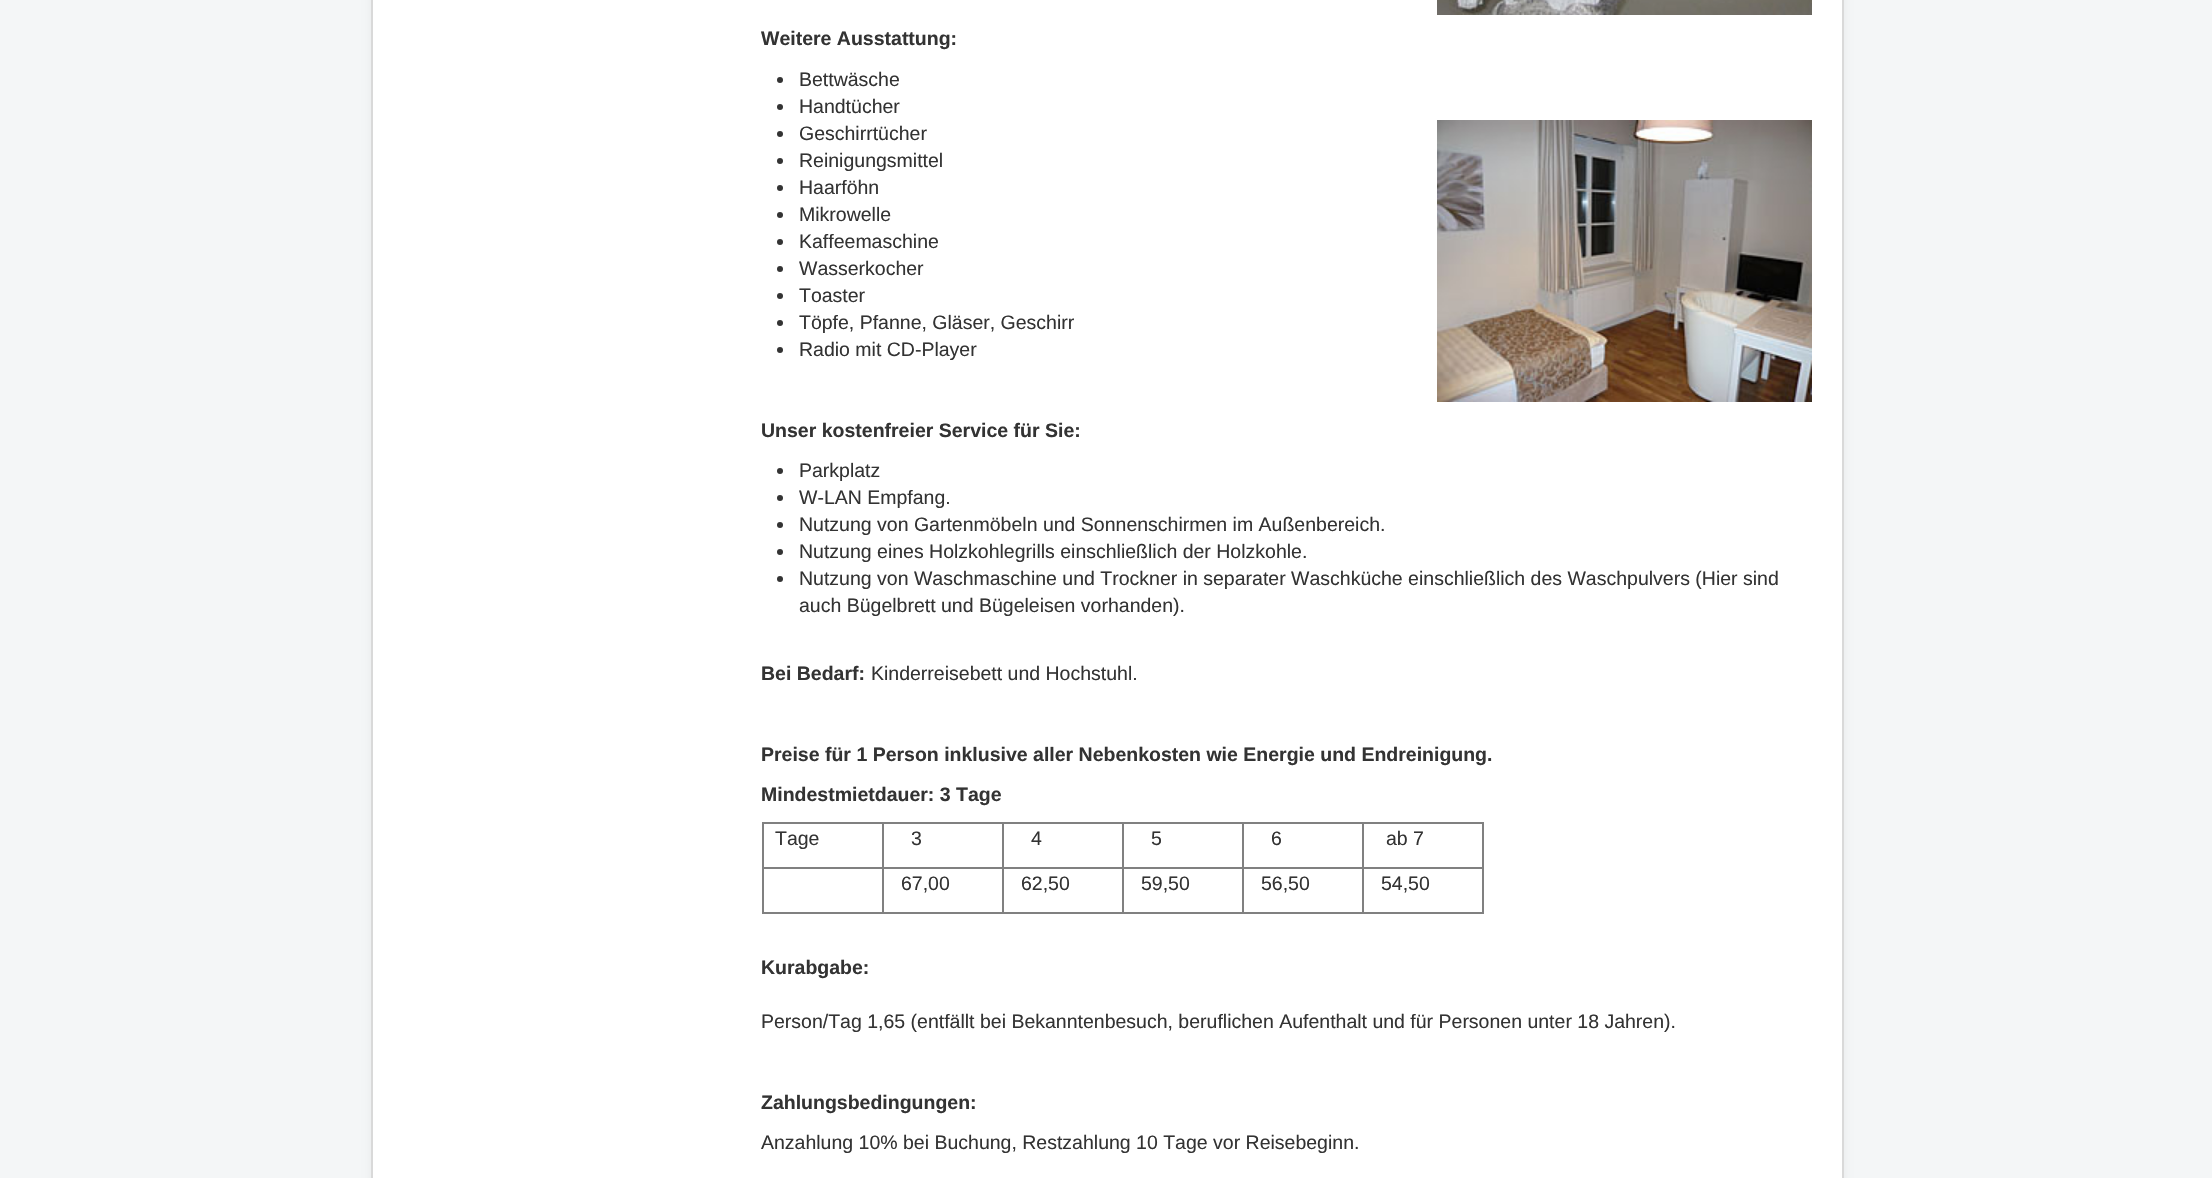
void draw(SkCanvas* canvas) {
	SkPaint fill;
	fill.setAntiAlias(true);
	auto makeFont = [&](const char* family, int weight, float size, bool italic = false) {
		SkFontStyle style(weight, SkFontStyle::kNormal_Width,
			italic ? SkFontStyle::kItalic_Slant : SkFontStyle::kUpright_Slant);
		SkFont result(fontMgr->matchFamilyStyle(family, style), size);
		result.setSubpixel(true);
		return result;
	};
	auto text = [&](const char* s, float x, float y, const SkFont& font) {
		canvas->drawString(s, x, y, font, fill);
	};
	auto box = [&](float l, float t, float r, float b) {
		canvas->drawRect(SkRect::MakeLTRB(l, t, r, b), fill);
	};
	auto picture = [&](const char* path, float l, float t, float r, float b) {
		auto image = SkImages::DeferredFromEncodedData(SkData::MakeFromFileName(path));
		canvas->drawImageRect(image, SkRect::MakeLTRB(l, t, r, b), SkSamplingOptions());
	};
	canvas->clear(0xFFF4F6F7);
	fill.setColor(0x0D000000);
	fill.setMaskFilter(SkMaskFilter::MakeBlur(kNormal_SkBlurStyle, 4.5f));
	canvas->drawRoundRect(SkRect::MakeLTRB(371, -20, 1844, 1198), 6, 6, fill);
	fill.setMaskFilter(nullptr);
	fill.setColor(0xFFFFFFFF);
	canvas->drawRect(SkRect::MakeLTRB(372, -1, 1843, 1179), fill);
	fill.setStyle(SkPaint::kStroke_Style);
	fill.setStrokeWidth(2);
	fill.setColor(0xFFD9D9D9);
	canvas->drawRect(SkRect::MakeLTRB(372, -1, 1843, 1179), fill);
	picture("image0.png", 1437, 0, 1812, 15);
	fill.setStyle(SkPaint::kFill_Style);
	fill.setColor(0xFF333333);
	canvas->drawCircle(780, 80, 3, fill);
	canvas->drawCircle(780, 107, 3, fill);
	canvas->drawCircle(780, 134, 3, fill);
	picture("image1.png", 1437, 120, 1812, 402);
	canvas->drawCircle(780, 161, 3, fill);
	canvas->drawCircle(780, 188, 3, fill);
	canvas->drawCircle(780, 215, 3, fill);
	canvas->drawCircle(780, 242, 3, fill);
	canvas->drawCircle(780, 269, 3, fill);
	canvas->drawCircle(780, 296, 3, fill);
	canvas->drawCircle(780, 323, 3, fill);
	canvas->drawCircle(780, 350, 3, fill);
	canvas->drawCircle(780, 471, 3, fill);
	canvas->drawCircle(780, 498, 3, fill);
	canvas->drawCircle(780, 525, 3, fill);
	canvas->drawCircle(780, 552, 3, fill);
	canvas->drawCircle(780, 579, 3, fill);
	fill.setColor(0xFF808080);
	box(762, 822, 1484, 824);
	box(1482, 822, 1484, 914);
	box(762, 912, 1484, 914);
	box(762, 822, 764, 914);
	box(1362, 867, 1484, 869);
	box(1362, 867, 1364, 914);
	box(1242, 867, 1364, 869);
	box(1242, 867, 1244, 914);
	box(1122, 867, 1244, 869);
	box(1122, 867, 1124, 914);
	box(1002, 867, 1124, 869);
	box(1002, 867, 1004, 914);
	box(882, 867, 1004, 869);
	box(882, 867, 884, 914);
	box(762, 867, 884, 869);
	box(882, 822, 884, 869);
	box(1002, 822, 1004, 869);
	box(1122, 822, 1124, 869);
	box(1242, 822, 1244, 869);
	box(1362, 822, 1364, 869);
	auto font1 = makeFont("Liberation Sans", 700, 19.5f);
	fill.setColor(0xFF333333);
	text("Weitere Ausstattung:", 761, 45, font1);
	auto font2 = makeFont("Liberation Sans", 400, 19.5f);
	text("Bettwäsche", 799, 86, font2);
	text("Handtücher", 799, 113, font2);
	text("Geschirrtücher", 799, 140, font2);
	text("Reinigungsmittel", 799, 167, font2);
	text("Haarföhn", 799, 194, font2);
	text("Mikrowelle", 799, 221, font2);
	text("Kaffeemaschine", 799, 248, font2);
	text("Wasserkocher", 799, 275, font2);
	text("Toaster", 799, 302, font2);
	text("Töpfe, Pfanne, Gläser, Geschirr", 799, 329, font2);
	text("Radio mit CD-Player", 799, 356, font2);
	text("Unser kostenfreier Service für Sie:", 761, 437, font1);
	text("Parkplatz", 799, 477, font2);
	text("W-LAN Empfang.", 799, 504, font2);
	text("Nutzung von Gartenmöbeln und Sonnenschirmen im Außenbereich.", 799, 531, font2);
	text("Nutzung eines Holzkohlegrills einschließlich der Holzkohle.", 799, 558, font2);
	text("Nutzung von Waschmaschine und Trockner in separater Waschküche einschließlich des Waschpulvers (Hier sind", 799, 585, font2);
	text("auch Bügelbrett und Bügeleisen vorhanden).", 799, 612, font2);
	text("Bei Bedarf:", 761, 680, font1);
	text("Kinderreisebett und Hochstuhl.", 871, 680, font2);
	text("Preise für 1 Person inklusive aller Nebenkosten wie Energie und Endreinigung.", 761, 761, font1);
	text("Mindestmietdauer: 3 Tage", 761, 801, font1);
	text("Tage", 775, 845, font2);
	text("3", 911, 845, font2);
	text("4", 1031, 845, font2);
	text("5", 1151, 845, font2);
	text("6", 1271, 845, font2);
	text("ab 7", 1386, 845, font2);
	text("67,00", 901, 890, font2);
	text("62,50", 1021, 890, font2);
	text("59,50", 1141, 890, font2);
	text("56,50", 1261, 890, font2);
	text("54,50", 1381, 890, font2);
	text("Kurabgabe:", 761, 974, font1);
	text("Person/Tag 1,65 (entfällt bei Bekanntenbesuch, beruflichen Aufenthalt und für Personen unter 18 Jahren).", 761, 1028, font2);
	text("Zahlungsbedingungen:", 761, 1109, font1);
	text("Anzahlung 10% bei Buchung, Restzahlung 10 Tage vor Reisebeginn.", 761, 1149, font2);
}
